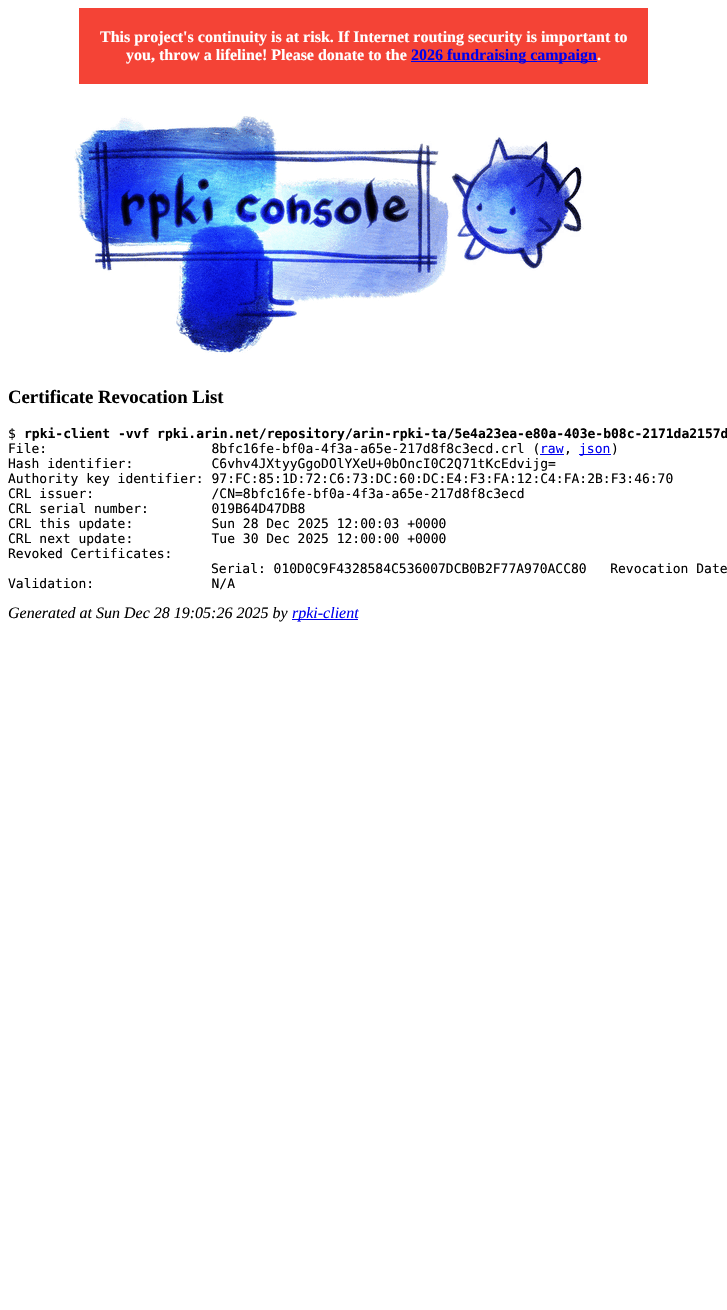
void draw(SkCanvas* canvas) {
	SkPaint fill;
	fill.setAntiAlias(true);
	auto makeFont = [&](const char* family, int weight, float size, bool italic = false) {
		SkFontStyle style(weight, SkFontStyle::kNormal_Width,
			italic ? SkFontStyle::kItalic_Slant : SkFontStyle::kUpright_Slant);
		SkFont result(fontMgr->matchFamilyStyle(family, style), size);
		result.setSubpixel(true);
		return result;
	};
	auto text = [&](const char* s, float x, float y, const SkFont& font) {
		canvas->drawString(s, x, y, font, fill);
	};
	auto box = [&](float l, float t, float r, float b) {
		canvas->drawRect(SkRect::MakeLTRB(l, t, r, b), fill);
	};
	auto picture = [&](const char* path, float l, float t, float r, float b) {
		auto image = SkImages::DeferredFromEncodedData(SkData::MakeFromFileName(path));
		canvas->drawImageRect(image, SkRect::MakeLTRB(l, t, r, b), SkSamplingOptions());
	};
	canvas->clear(0xFFFFFFFF);
	fill.setColor(0xFFF44336);
	box(79, 8, 648, 84);
	fill.setColor(0xFF0000EE);
	box(411, 61, 597, 62);
	picture("image0.png", 74, 116, 584, 355);
	box(540, 454, 564, 455);
	box(579, 454, 611, 455);
	box(292, 619, 358, 620);
	auto font1 = makeFont("Liberation Serif", 700, 16);
	fill.setColor(0xFFFFFFFF);
	text("This project's continuity is at risk. If Internet routing security is important to", 100, 42, font1);
	text("you, throw a lifeline! Please donate to the", 126, 60, font1);
	fill.setColor(0xFF0000EE);
	text("2026 fundraising campaign", 411, 60, font1);
	fill.setColor(0xFFFFFFFF);
	text(".", 597, 60, font1);
	auto font2 = makeFont("Liberation Serif", 700, 18.75f);
	fill.setColor(0xFF000000);
	text("Certificate Revocation List", 8, 403, font2);
	auto font3 = makeFont("DejaVu Sans Mono", 400, 13);
	text("$", 8, 438, font3);
	auto font4 = makeFont("DejaVu Sans Mono", 700, 13);
	text("rpki-client -vvf rpki.arin.net/repository/arin-rpki-ta/5e4a23ea-e80a-403e-b08c-2171da2157d", 24, 438, font4);
	text("File:                     8bfc16fe-bf0a-4f3a-a65e-217d8f8c3ecd.crl (", 8, 453, font3);
	fill.setColor(0xFF0000EE);
	text("raw", 540, 453, font3);
	fill.setColor(0xFF000000);
	text(",", 564, 453, font3);
	fill.setColor(0xFF0000EE);
	text("json", 579, 453, font3);
	fill.setColor(0xFF000000);
	text(")", 611, 453, font3);
	text("Hash identifier:          C6vhv4JXtyyGgoDOlYXeU+0bOncI0C2Q71tKcEdvijg=", 8, 468, font3);
	text("Authority key identifier: 97:FC:85:1D:72:C6:73:DC:60:DC:E4:F3:FA:12:C4:FA:2B:F3:46:70", 8, 483, font3);
	text("CRL issuer:               /CN=8bfc16fe-bf0a-4f3a-a65e-217d8f8c3ecd", 8, 498, font3);
	text("CRL serial number:        019B64D47DB8", 8, 513, font3);
	text("CRL this update:          Sun 28 Dec 2025 12:00:03 +0000", 8, 528, font3);
	text("CRL next update:          Tue 30 Dec 2025 12:00:00 +0000", 8, 543, font3);
	text("Revoked Certificates:", 8, 558, font3);
	text("Serial: 010D0C9F4328584C536007DCB0B2F77A970ACC80   Revocation Date", 211, 573, font3);
	text("Validation:               N/A", 8, 588, font3);
	auto font5 = makeFont("Liberation Serif", 400, 16, true);
	text("Generated at Sun Dec 28 19:05:26 2025 by", 8, 618, font5);
	fill.setColor(0xFF0000EE);
	text("rpki-client", 292, 618, font5);
}
